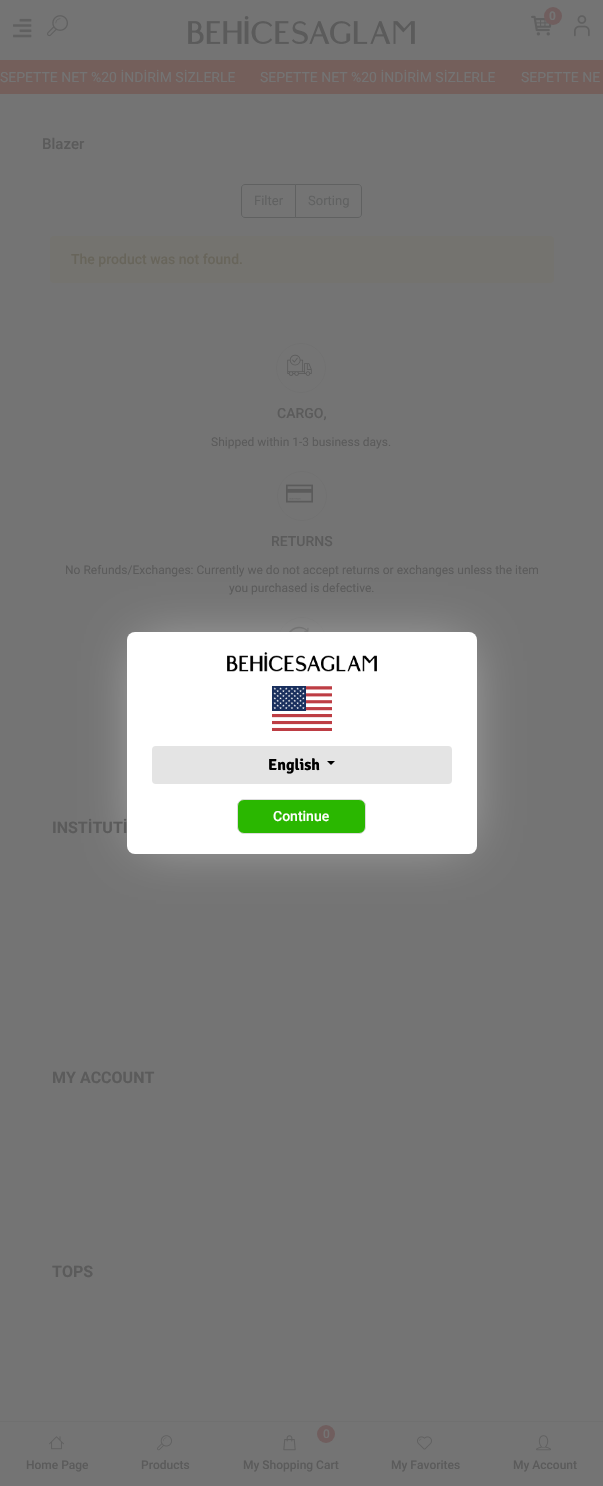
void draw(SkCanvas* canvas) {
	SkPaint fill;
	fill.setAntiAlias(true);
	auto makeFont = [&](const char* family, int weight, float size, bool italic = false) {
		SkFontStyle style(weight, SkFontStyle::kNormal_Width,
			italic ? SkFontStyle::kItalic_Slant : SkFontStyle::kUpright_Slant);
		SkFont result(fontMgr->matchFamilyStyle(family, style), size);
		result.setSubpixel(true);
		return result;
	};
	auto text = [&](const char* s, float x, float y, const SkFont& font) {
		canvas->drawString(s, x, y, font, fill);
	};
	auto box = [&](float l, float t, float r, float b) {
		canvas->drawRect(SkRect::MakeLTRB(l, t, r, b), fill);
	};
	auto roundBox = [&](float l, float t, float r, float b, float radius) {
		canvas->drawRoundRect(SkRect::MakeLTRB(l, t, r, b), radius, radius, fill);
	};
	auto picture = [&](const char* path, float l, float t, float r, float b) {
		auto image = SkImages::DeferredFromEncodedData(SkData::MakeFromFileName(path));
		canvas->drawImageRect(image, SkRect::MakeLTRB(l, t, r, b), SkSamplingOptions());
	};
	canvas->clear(0xFF747474);
	picture("image0.png", 13, 18, 32, 38);
	picture("image1.png", 47, 15, 68, 37);
	picture("image2.png", 188, 16, 415, 44);
	picture("image3.png", 531, 15, 552, 36);
	fill.setColor(0xFF705E5E);
	canvas->drawCircle(553, 16, 9, fill);
	picture("image4.png", 574, 15, 590, 37);
	fill.setColor(0xFF745F5B);
	box(0, 60, 603, 94);
	fill.setStyle(SkPaint::kStroke_Style);
	fill.setStrokeWidth(1);
	fill.setColor(0xFF606161);
	canvas->drawPath(SkPathBuilder().moveTo(245, 184.5f).lineTo(295.5f, 184.5f).lineTo(295.5f, 217.5f).lineTo(245, 217.5f).cubicTo(243, 217.5f, 241.5f, 216, 241.5f, 214).lineTo(241.5f, 188).cubicTo(241.5f, 186, 243, 184.5f, 245, 184.5f).close().detach(), fill);
	canvas->drawPath(SkPathBuilder().moveTo(295.5f, 184.5f).lineTo(358, 184.5f).cubicTo(360, 184.5f, 361.5f, 186, 361.5f, 188).lineTo(361.5f, 214).cubicTo(361.5f, 216, 360, 217.5f, 358, 217.5f).lineTo(295.5f, 217.5f).close().detach(), fill);
	fill.setStyle(SkPaint::kFill_Style);
	fill.setColor(0xFF74736F);
	roundBox(50, 236, 554, 283, 4);
	fill.setStyle(SkPaint::kStroke_Style);
	fill.setColor(0xFF717171);
	canvas->drawCircle(301, 368, 24.5f, fill);
	picture("image5.png", 287, 354, 312, 376);
	canvas->drawCircle(302, 496, 24.5f, fill);
	picture("image6.png", 286, 484, 313, 503);
	canvas->drawCircle(302, 642, 24.5f, fill);
	picture("image7.png", 289, 626, 309, 632);
	fill.setStyle(SkPaint::kFill_Style);
	fill.setColor(0xFFB0B0B0);
	fill.setMaskFilter(SkMaskFilter::MakeBlur(kNormal_SkBlurStyle, 25));
	canvas->drawRect(SkRect::MakeLTRB(138, 643, 466, 843), fill);
	fill.setMaskFilter(nullptr);
	fill.setColor(0xFFFFFFFF);
	roundBox(127, 632, 477, 854, 8);
	picture("image8.png", 227, 652, 377, 672);
	picture("image9.png", 272, 686, 332, 731);
	fill.setColor(0xFFE4E4E4);
	roundBox(152, 746, 452, 784, 4);
	fill.setColor(0xFF000000);
	canvas->drawPath(SkPathBuilder().moveTo(327, 761).lineTo(335, 761).lineTo(331, 765).close().detach(), fill);
	fill.setColor(0xFF2AB700);
	canvas->drawRoundRect(SkRect::MakeLTRB(237.5f, 799.5f, 365.5f, 833.5f), 6.5f, 6.5f, fill);
	fill.setStyle(SkPaint::kStroke_Style);
	fill.setColor(0xFFDDDDDD);
	canvas->drawRoundRect(SkRect::MakeLTRB(237.5f, 799.5f, 365.5f, 833.5f), 6.5f, 6.5f, fill);
	fill.setStyle(SkPaint::kFill_Style);
	fill.setColor(0xFF707070);
	box(0, 1421, 603, 1422);
	picture("image10.png", 49, 1436, 64, 1450);
	picture("image11.png", 157, 1435, 172, 1451);
	fill.setColor(0xFF705E5E);
	canvas->drawCircle(326, 1434, 9, fill);
	picture("image12.png", 283, 1435, 296, 1451);
	picture("image13.png", 417, 1436, 432, 1450);
	picture("image14.png", 536, 1435, 551, 1451);
	auto font1 = makeFont("Roboto", 700, 12);
	fill.setColor(0xFF747474);
	text("0", 549, 20, font1);
	auto font2 = makeFont("Roboto", 400, 14);
	text("SEPETTE NET %20 İNDİRİM SİZLERLE", 0, 82, font2);
	text("SEPETTE NET %20 İNDİRİM SİZLERLE", 260, 82, font2);
	text("SEPETTE NE", 521, 82, font2);
	auto font3 = makeFont("Roboto", 500, 15);
	fill.setColor(0xFF5B5B5B);
	text("Blazer", 42, 149, font3);
	auto font4 = makeFont("Roboto", 400, 13);
	fill.setColor(0xFF606161);
	text("Filter", 254, 205, font4);
	text("Sorting", 308, 205, font4);
	auto font5 = makeFont("Roboto", 500, 14);
	fill.setColor(0xFF68655B);
	text("The product was not found.", 71, 264, font5);
	fill.setColor(0xFF5B5B5B);
	text("CARGO,", 277, 418, font5);
	auto font6 = makeFont("Roboto", 400, 12);
	text("Shipped within 1-3 business days.", 211, 446, font6);
	text("RETURNS", 271, 546, font5);
	text("No Refunds/Exchanges: Currently we do not accept returns or exchanges unless the item", 65, 574, font6);
	text("you purchased is defective.", 229, 592, font6);
	auto font7 = makeFont("Roboto", 700, 16);
	text("INSTİTUTİ", 52, 833, font7);
	text("MY ACCOUNT", 52, 1083, font7);
	text("TOPS", 52, 1277, font7);
	auto font8 = makeFont("Signika", 700, 16);
	fill.setColor(0xFF000000);
	text("English", 268, 770, font8);
	fill.setColor(0xFFFFFFFF);
	text("Continue", 273, 821, font5);
	auto font9 = makeFont("Roboto", 500, 12);
	fill.setColor(0xFF5B5B5B);
	text("Home Page", 26, 1469, font9);
	text("Products", 141, 1469, font9);
	fill.setColor(0xFF747474);
	text("0", 323, 1438, font9);
	fill.setColor(0xFF5B5B5B);
	text("My Shopping Cart", 243, 1469, font9);
	text("My Favorites", 391, 1469, font9);
	text("My Account", 513, 1469, font9);
}
